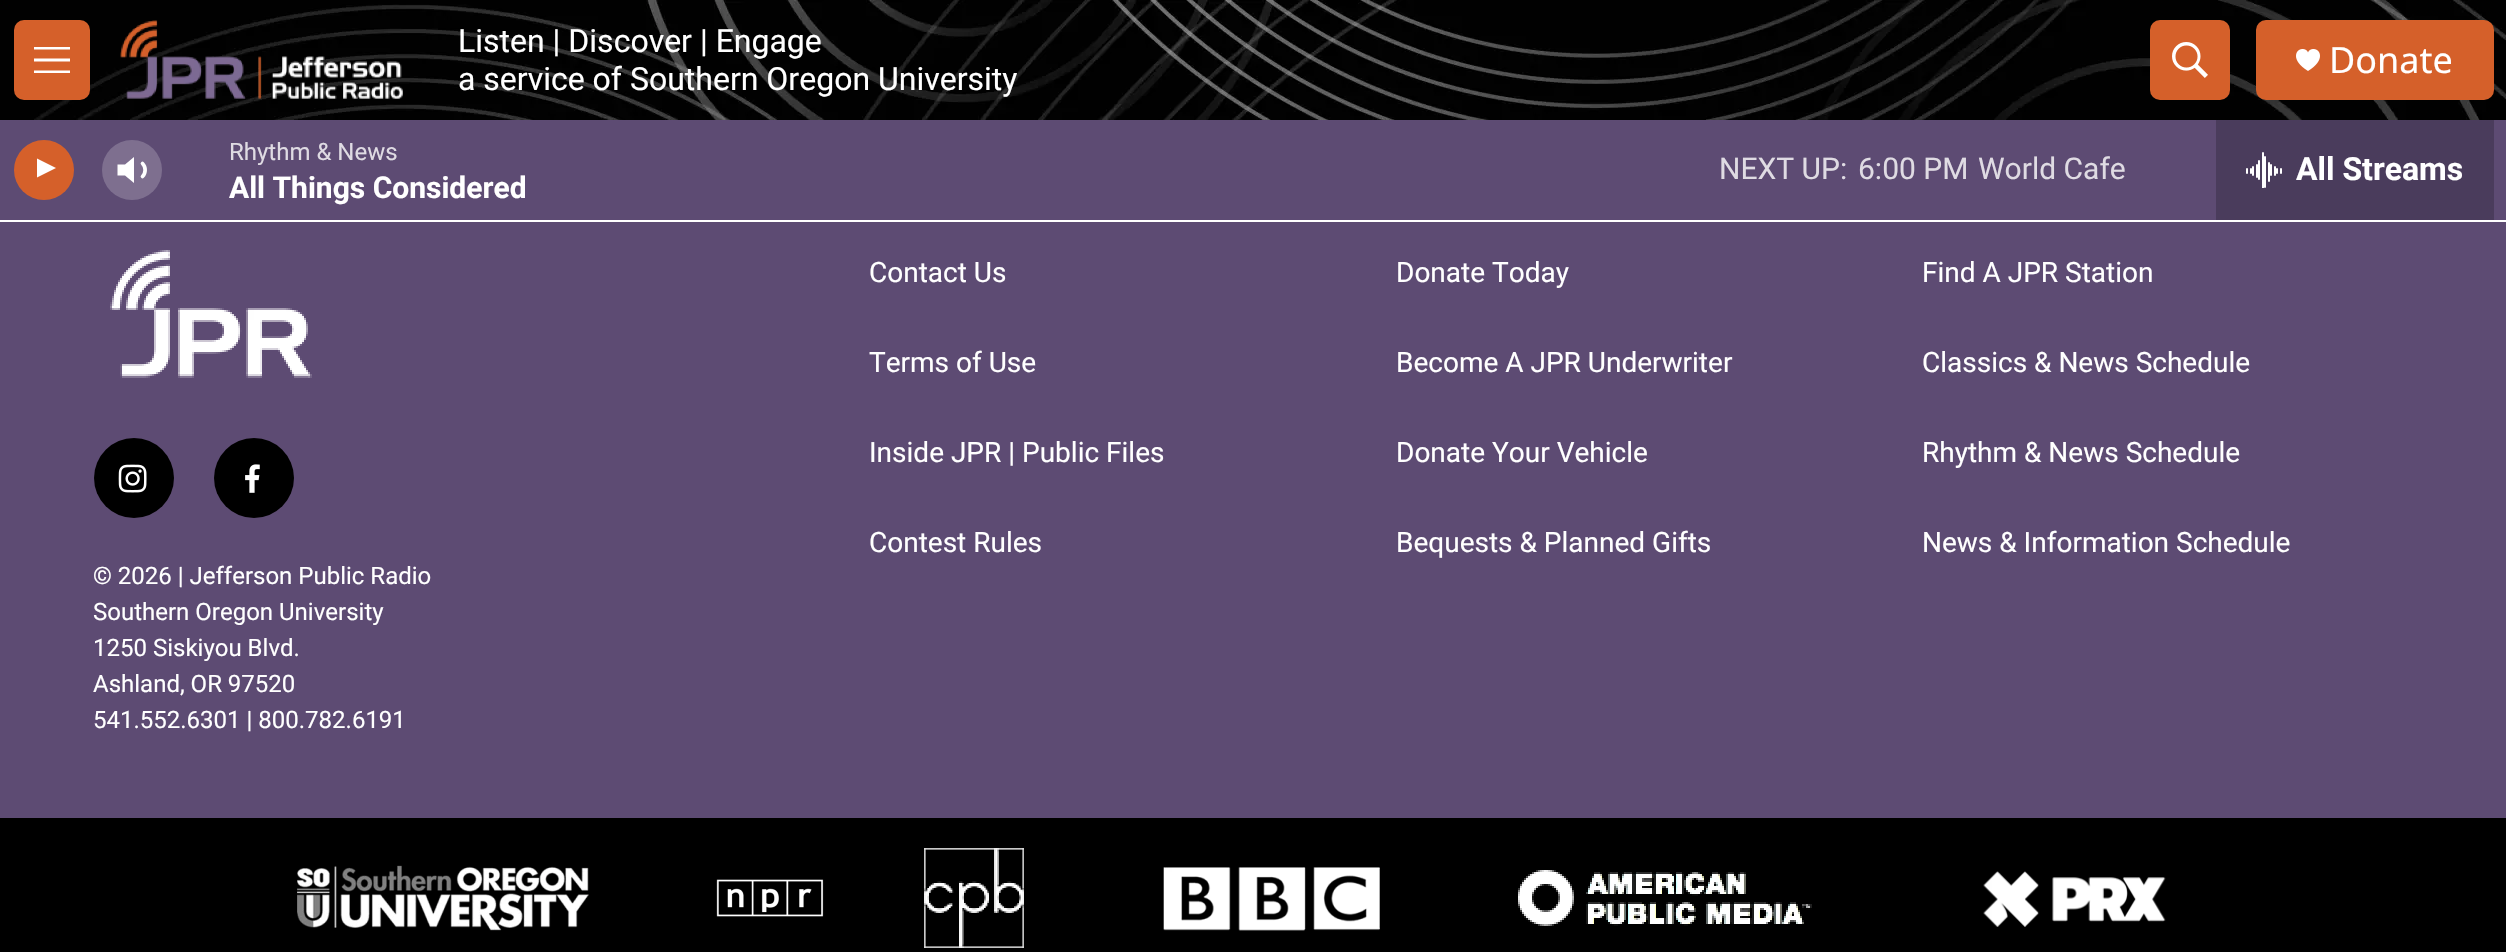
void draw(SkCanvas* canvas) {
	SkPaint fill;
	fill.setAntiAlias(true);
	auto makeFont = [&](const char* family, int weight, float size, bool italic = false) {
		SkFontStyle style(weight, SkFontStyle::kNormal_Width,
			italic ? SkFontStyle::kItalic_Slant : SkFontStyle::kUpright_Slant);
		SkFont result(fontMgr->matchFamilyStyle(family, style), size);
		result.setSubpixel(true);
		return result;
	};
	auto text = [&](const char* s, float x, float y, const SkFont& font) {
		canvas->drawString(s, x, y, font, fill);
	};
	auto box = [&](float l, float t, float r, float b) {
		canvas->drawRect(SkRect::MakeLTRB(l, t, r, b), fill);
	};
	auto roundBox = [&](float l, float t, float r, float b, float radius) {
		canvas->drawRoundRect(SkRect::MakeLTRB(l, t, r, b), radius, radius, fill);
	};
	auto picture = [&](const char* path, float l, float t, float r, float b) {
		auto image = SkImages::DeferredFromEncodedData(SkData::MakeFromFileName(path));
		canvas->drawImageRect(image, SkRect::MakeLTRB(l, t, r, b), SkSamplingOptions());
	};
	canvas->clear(0xFF5D4B73);
	fill.setColor(0xFFFFFFFF);
	box(0, 220, 2506, 222);
	picture("image0.png", 0, 0, 2506, 120);
	fill.setColor(0xFFD5602A);
	roundBox(14, 20, 90, 100, 10);
	fill.setColor(0xFFFFFFFF);
	canvas->drawPath(SkPathBuilder(SkPathFillType::kEvenOdd).moveTo(34, 61.5f).lineTo(34, 58.5f).lineTo(70, 58.5f).lineTo(70, 61.5f).close().moveTo(34, 49.5f).lineTo(34, 47).lineTo(70, 47).lineTo(70, 49.5f).close().moveTo(34, 73).lineTo(34, 70.5f).lineTo(70, 70.5f).lineTo(70, 73).close().detach(), fill);
	picture("image1.png", 120, 20, 403, 99);
	fill.setColor(0xFFD5602A);
	roundBox(2150, 20, 2230, 100, 10);
	picture("image2.png", 2172, 42, 2208, 78);
	roundBox(2256, 20, 2494, 100, 10);
	picture("image3.png", 2296, 49, 2320, 71);
	canvas->drawCircle(44, 170, 30, fill);
	fill.setColor(0xFFFFFFFF);
	canvas->drawPath(SkPathBuilder().moveTo(37, 158.5f).lineTo(56, 168).lineTo(37, 177.5f).close().detach(), fill);
	canvas->drawPath(SkPathBuilder().moveTo(134, 157).lineTo(125, 164.5f).lineTo(117.5f, 164.5f).lineTo(117.5f, 175.5f).lineTo(125, 175.5f).lineTo(134, 183).close().detach(), fill);
	fill.setStyle(SkPaint::kStroke_Style);
	fill.setStrokeWidth(3.7f);
	fill.setStrokeCap(SkPaint::kRound_Cap);
	fill.setStrokeJoin(SkPaint::kRound_Join);
	canvas->drawPath(SkPathBuilder().moveTo(142.5f, 163.5f).cubicTo(146, 167, 146, 173, 142.5f, 176.5f).detach(), fill);
	fill.setStyle(SkPaint::kFill_Style);
	fill.setColor(0x33FFFFFF);
	canvas->drawCircle(132, 170, 30, fill);
	fill.setColor(0xFF4A3C5C);
	box(2216, 120, 2494, 220);
	picture("image4.png", 2246, 152, 2282, 188);
	picture("image5.png", 110, 250, 312, 378);
	fill.setColor(0xFF000000);
	canvas->drawCircle(134, 478, 40, fill);
	picture("image6.png", 118, 464, 147, 493);
	canvas->drawCircle(254, 478, 40, fill);
	picture("image7.png", 245, 464, 260, 493);
	box(0, 818, 2506, 952);
	picture("image8.png", 297, 865, 589, 931);
	picture("image9.png", 716, 879, 824, 917);
	picture("image10.png", 924, 848, 1024, 948);
	picture("image11.png", 1163, 867, 1380, 931);
	picture("image12.png", 1518, 870, 1812, 926);
	picture("image13.png", 1983, 871, 2166, 927);
	auto font1 = makeFont("Roboto", 400, 32);
	fill.setColor(0xFFFFFFFF);
	text("Listen | Discover | Engage", 458, 52, font1);
	text("a service of Southern Oregon University", 458, 90, font1);
	auto font2 = makeFont("Noto Sans", 400, 36);
	text("Donate", 2329, 73, font2);
	auto font3 = makeFont("Roboto", 400, 24);
	fill.setColor(0xFFDFDBE3);
	text("Rhythm & News", 229, 160, font3);
	auto font4 = makeFont("Roboto", 700, 30);
	fill.setColor(0xFFFFFFFF);
	text("All Things Considered", 229, 198, font4);
	auto font5 = makeFont("Roboto", 400, 30);
	fill.setColor(0xFFDFDBE3);
	text("NEXT UP:", 1719, 179, font5);
	text("6:00 PM", 1858, 179, font5);
	text("World Cafe", 1978, 179, font5);
	auto font6 = makeFont("Roboto", 700, 32);
	fill.setColor(0xFFFFFFFF);
	text("All Streams", 2296, 180, font6);
	auto font7 = makeFont("Roboto", 400, 28);
	text("Contact Us", 869, 282, font7);
	text("Donate Today", 1396, 282, font7);
	text("Find A JPR Station", 1922, 282, font7);
	text("Terms of Use", 869, 372, font7);
	text("Become A JPR Underwriter", 1396, 372, font7);
	text("Classics & News Schedule", 1922, 372, font7);
	text("Inside JPR | Public Files", 869, 462, font7);
	text("Donate Your Vehicle", 1396, 462, font7);
	text("Rhythm & News Schedule", 1922, 462, font7);
	text("Contest Rules", 869, 552, font7);
	text("Bequests & Planned Gifts", 1396, 552, font7);
	text("News & Information Schedule", 1922, 552, font7);
	text("© 2026 | Jefferson Public Radio", 93, 584, font3);
	text("Southern Oregon University", 93, 620, font3);
	text("1250 Siskiyou Blvd.", 93, 656, font3);
	text("Ashland, OR 97520", 93, 692, font3);
	text("541.552.6301 | 800.782.6191", 93, 728, font3);
}
